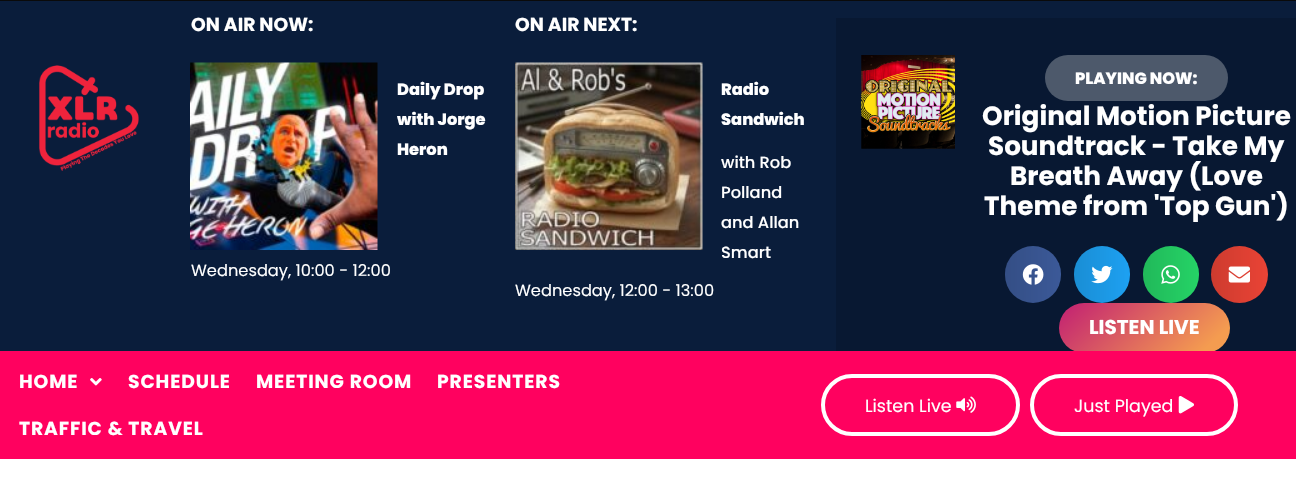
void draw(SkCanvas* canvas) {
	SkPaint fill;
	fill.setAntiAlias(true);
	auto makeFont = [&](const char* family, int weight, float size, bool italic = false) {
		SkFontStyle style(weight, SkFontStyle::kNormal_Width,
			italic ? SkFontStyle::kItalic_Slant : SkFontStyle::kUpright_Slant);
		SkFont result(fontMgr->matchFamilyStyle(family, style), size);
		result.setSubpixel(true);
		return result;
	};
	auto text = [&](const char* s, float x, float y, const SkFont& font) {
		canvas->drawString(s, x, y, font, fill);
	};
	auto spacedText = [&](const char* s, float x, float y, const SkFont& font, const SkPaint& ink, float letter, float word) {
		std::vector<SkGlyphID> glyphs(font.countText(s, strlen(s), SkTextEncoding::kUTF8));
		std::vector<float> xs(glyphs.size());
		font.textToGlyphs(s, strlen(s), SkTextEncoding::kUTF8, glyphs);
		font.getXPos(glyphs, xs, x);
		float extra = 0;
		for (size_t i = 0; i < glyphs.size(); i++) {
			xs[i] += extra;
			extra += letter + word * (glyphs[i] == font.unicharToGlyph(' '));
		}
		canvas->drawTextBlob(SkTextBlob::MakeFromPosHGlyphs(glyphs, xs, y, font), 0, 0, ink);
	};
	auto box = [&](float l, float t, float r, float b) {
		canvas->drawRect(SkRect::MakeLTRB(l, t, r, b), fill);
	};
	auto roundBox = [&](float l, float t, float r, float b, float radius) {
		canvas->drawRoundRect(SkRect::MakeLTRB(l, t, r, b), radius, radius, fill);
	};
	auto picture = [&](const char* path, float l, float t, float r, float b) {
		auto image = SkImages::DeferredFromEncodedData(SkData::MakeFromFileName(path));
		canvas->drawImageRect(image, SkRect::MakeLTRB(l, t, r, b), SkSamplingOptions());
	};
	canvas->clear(0xFFFFFFFF);
	fill.setColor(0xFF0A0A0A);
	box(0, 0, 1296, 1);
	fill.setColor(0xFF0A1D3B);
	box(0, 1, 1296, 351);
	fill.setColor(0xFF081832);
	box(836, 18, 1296, 351);
	picture("image0.png", 39, 65, 139, 171);
	picture("image1.png", 190, 62, 378, 250);
	picture("image2.png", 515, 62, 703, 250);
	picture("image3.png", 861, 55, 955, 149);
	fill.setColor(0xFF4D596B);
	roundBox(1045, 55, 1228, 101, 23);
	fill.setColor(0xFF3B5998);
	roundBox(1005, 246, 1061, 303, 28);
	{
		const SkColor colors[] = {0x1F000000, 0x00000000};
		const float stops[] = {0, 1};
		const SkPoint ends[] = {{1005, 274}, {1061, 274}};
		fill.setShader(SkGradientShader::MakeLinear(ends, colors, stops, 2, SkTileMode::kClamp));
		fill.setAlpha(255);
	}
	roundBox(1005, 246, 1061, 303, 28);
	picture("image4.png", 1022, 264, 1044, 285);
	fill.setShader(nullptr);
	fill.setColor(0xFF1DA1F2);
	roundBox(1074, 246, 1130, 303, 28);
	{
		const SkColor colors[] = {0x1F000000, 0x00000000};
		const float stops[] = {0, 1};
		const SkPoint ends[] = {{1074, 274}, {1130, 274}};
		fill.setShader(SkGradientShader::MakeLinear(ends, colors, stops, 2, SkTileMode::kClamp));
		fill.setAlpha(255);
	}
	roundBox(1074, 246, 1130, 303, 28);
	picture("image5.png", 1091, 265, 1113, 284);
	fill.setShader(nullptr);
	fill.setColor(0xFF25D366);
	roundBox(1143, 246, 1199, 303, 28);
	{
		const SkColor colors[] = {0x1F000000, 0x00000000};
		const float stops[] = {0, 1};
		const SkPoint ends[] = {{1143, 274}, {1199, 274}};
		fill.setShader(SkGradientShader::MakeLinear(ends, colors, stops, 2, SkTileMode::kClamp));
		fill.setAlpha(255);
	}
	roundBox(1143, 246, 1199, 303, 28);
	picture("image6.png", 1161, 265, 1180, 284);
	fill.setShader(nullptr);
	fill.setColor(0xFFEA4335);
	canvas->drawCircle(1239.5f, 274.5f, 28.5f, fill);
	{
		const SkColor colors[] = {0x1F000000, 0x00000000};
		const float stops[] = {0, 1};
		const SkPoint ends[] = {{1211, 274}, {1268, 274}};
		fill.setShader(SkGradientShader::MakeLinear(ends, colors, stops, 2, SkTileMode::kClamp));
		fill.setAlpha(255);
	}
	canvas->drawCircle(1239.5f, 274.5f, 28.5f, fill);
	picture("image7.png", 1228, 266, 1250, 283);
	{
		const SkColor colors[] = {0xFFC11E73, 0xFFF49C50};
		const float stops[] = {0, 0.87f};
		const SkPoint ends[] = {{1092, 271}, {1197, 384}};
		fill.setShader(SkGradientShader::MakeLinear(ends, colors, stops, 2, SkTileMode::kClamp));
		fill.setAlpha(255);
	}
	roundBox(1059, 303, 1230, 353, 25);
	fill.setShader(nullptr);
	fill.setColor(0xFFFF015F);
	box(0, 351, 1296, 459);
	picture("image8.png", 90, 378, 102, 386);
	fill.setStyle(SkPaint::kStroke_Style);
	fill.setStrokeWidth(4);
	fill.setColor(0xFFFFFFFF);
	canvas->drawRoundRect(SkRect::MakeLTRB(823, 376, 1018, 434), 29, 29, fill);
	picture("image9.png", 956, 396, 976, 413);
	canvas->drawRoundRect(SkRect::MakeLTRB(1032, 376, 1236, 434), 29, 29, fill);
	picture("image10.png", 1178, 396, 1194, 414);
	auto font1 = makeFont("Poppins", 700, 18.75f);
	fill.setStyle(SkPaint::kFill_Style);
	text("ON AIR NOW:", 191, 31, font1);
	auto font2 = makeFont("Poppins", 800, 16.25f);
	text("Daily Drop", 397, 95, font2);
	text("with Jorge", 397, 125, font2);
	text("Heron", 397, 155, font2);
	auto font3 = makeFont("Poppins", 400, 16.25f);
	text("Wednesday, 10:00 - 12:00", 191, 276, font3);
	text("ON AIR NEXT:", 515, 31, font1);
	text("Radio", 721, 95, font2);
	text("Sandwich", 721, 125, font2);
	auto font4 = makeFont("Poppins", 500, 16.25f);
	text("with Rob", 721, 168, font4);
	text("Polland", 721, 198, font4);
	text("and Allan", 721, 228, font4);
	text("Smart", 721, 258, font4);
	text("Wednesday, 12:00 - 13:00", 515, 296, font3);
	text("PLAYING NOW:", 1075, 84, font2);
	auto font5 = makeFont("Poppins", 700, 26.25f);
	text("Original Motion Picture", 982, 125, font5);
	text("Soundtrack - Take My", 988, 155, font5);
	text("Breath Away (Love", 1010, 185, font5);
	text("Theme from 'Top Gun')", 984, 215, font5);
	auto font6 = makeFont("Poppins", 700, 20);
	text("LISTEN LIVE", 1089, 334, font6);
	spacedText("HOME", 19, 388, font1, fill, 0.9f, 0);
	spacedText("SCHEDULE", 128, 388, font1, fill, 0.9f, 0);
	spacedText("MEETING ROOM", 256, 388, font1, fill, 0.9f, 0);
	spacedText("PRESENTERS", 437, 388, font1, fill, 0.9f, 0);
	spacedText("TRAFFIC & TRAVEL", 19, 435, font1, fill, 0.9f, 0);
	auto font7 = makeFont("Poppins", 400, 17.5f);
	text("Listen Live", 865, 412, font7);
	text("Just Played", 1074, 412, font7);
}
